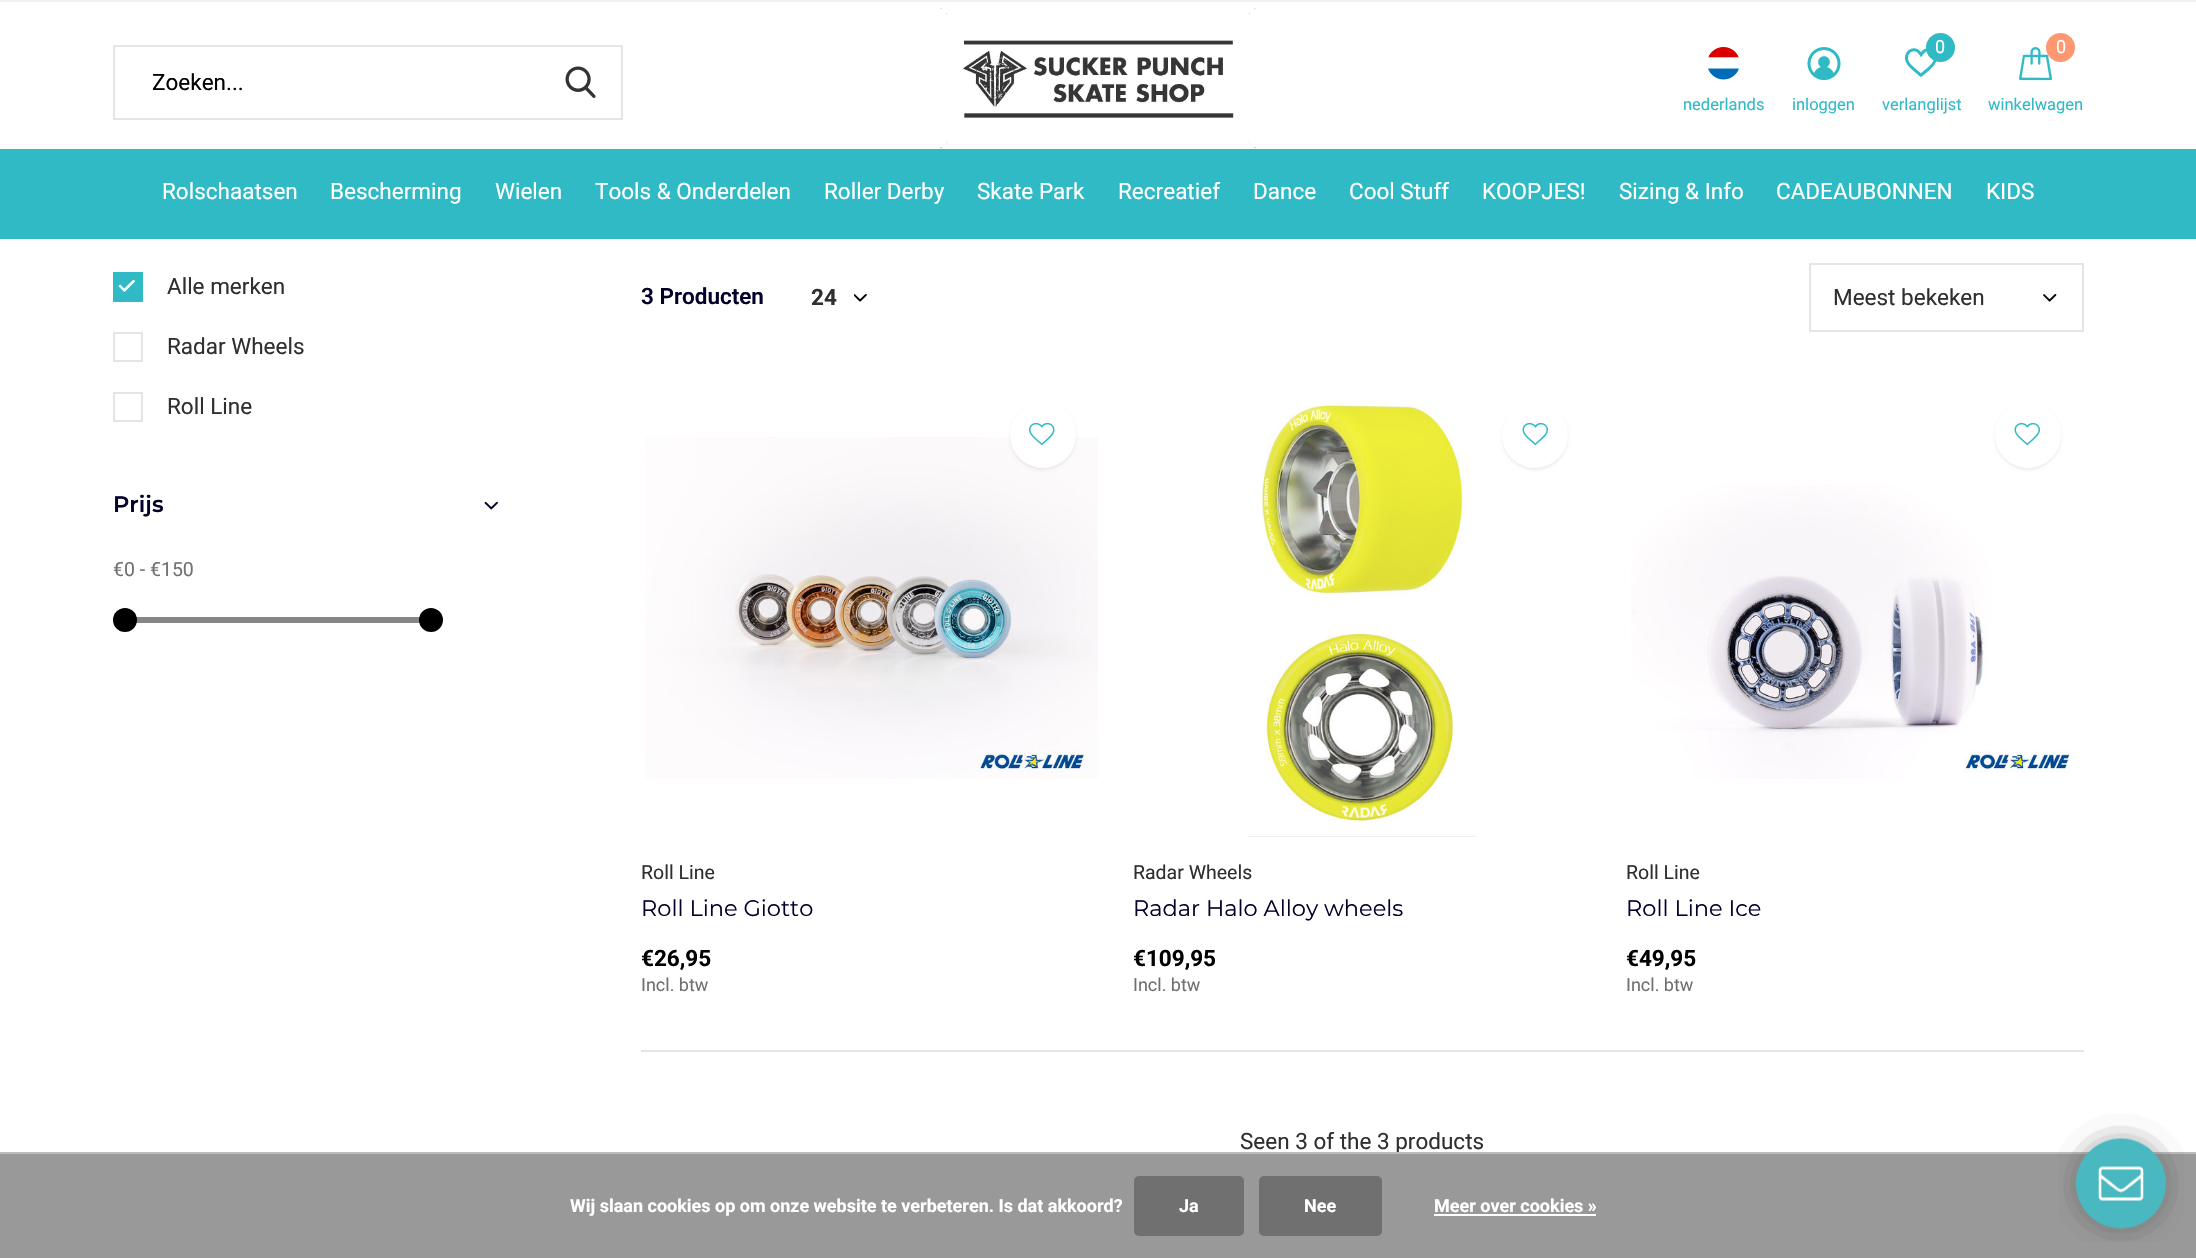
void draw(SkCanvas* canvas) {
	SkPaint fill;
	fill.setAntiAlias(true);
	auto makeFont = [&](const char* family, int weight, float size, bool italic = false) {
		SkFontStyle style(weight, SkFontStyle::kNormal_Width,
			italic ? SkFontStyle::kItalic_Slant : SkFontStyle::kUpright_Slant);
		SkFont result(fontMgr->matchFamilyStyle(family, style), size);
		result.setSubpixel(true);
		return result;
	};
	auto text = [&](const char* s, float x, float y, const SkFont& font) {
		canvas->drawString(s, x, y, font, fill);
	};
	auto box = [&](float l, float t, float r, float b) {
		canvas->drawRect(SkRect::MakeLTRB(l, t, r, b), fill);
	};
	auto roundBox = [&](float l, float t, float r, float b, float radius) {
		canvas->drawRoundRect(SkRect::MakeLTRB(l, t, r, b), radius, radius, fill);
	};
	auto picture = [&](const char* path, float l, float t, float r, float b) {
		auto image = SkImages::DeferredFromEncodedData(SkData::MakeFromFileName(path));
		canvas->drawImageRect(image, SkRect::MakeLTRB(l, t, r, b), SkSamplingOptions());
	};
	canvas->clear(0xFFFFFFFF);
	fill.setColor(0xFFF0F0F0);
	box(0, 0, 2196, 2);
	picture("image0.png", 940, 7, 1256, 149);
	picture("image1.png", 1708, 47, 1739, 80);
	picture("image2.png", 1807, 47, 1841, 81);
	picture("image3.png", 1905, 48, 1937, 77);
	fill.setColor(0xFF2FBAC6);
	canvas->drawCircle(1940.5f, 47.5f, 14.5f, fill);
	picture("image4.png", 2019, 47, 2052, 81);
	fill.setColor(0xFFFF9770);
	canvas->drawCircle(2060.5f, 47.5f, 14.5f, fill);
	fill.setColor(0xFF2FBAC6);
	box(0, 149, 2196, 239);
	fill.setStyle(SkPaint::kStroke_Style);
	fill.setStrokeWidth(2);
	fill.setColor(0xFFE5E5E5);
	canvas->drawRect(SkRect::MakeLTRB(114, 46, 622, 119), fill);
	picture("image5.png", 565, 66, 596, 98);
	fill.setStyle(SkPaint::kFill_Style);
	fill.setColor(0xFF2FBAC6);
	box(113, 272, 143, 302);
	picture("image6.png", 118, 279, 135, 292);
	fill.setStyle(SkPaint::kStroke_Style);
	fill.setColor(0xFFE5E5E5);
	canvas->drawRect(SkRect::MakeLTRB(114, 333, 142, 361), fill);
	canvas->drawRect(SkRect::MakeLTRB(114, 393, 142, 421), fill);
	picture("image7.png", 484, 501, 498, 510);
	fill.setStyle(SkPaint::kFill_Style);
	fill.setColor(0xFF868686);
	box(136, 617, 420, 623);
	fill.setColor(0xFF000000);
	canvas->drawCircle(125, 620, 12, fill);
	canvas->drawCircle(431, 620, 12, fill);
	picture("image8.png", 854, 294, 867, 302);
	picture("image9.png", 2043, 294, 2057, 302);
	fill.setStyle(SkPaint::kStroke_Style);
	fill.setColor(0xFFE5E5E5);
	canvas->drawRect(SkRect::MakeLTRB(1810, 264, 2083, 331), fill);
	picture("image11.png", 645, 437, 1098, 779);
	fill.setStyle(SkPaint::kFill_Style);
	fill.setColor(0x12000000);
	fill.setMaskFilter(SkMaskFilter::MakeBlur(kNormal_SkBlurStyle, 1.5f));
	canvas->drawRoundRect(SkRect::MakeLTRB(1010, 404, 1076, 470), 33, 33, fill);
	fill.setMaskFilter(nullptr);
	fill.setColor(0xFFFFFFFF);
	canvas->drawCircle(1043, 435, 33, fill);
	picture("image10.png", 1029, 422, 1055, 446);
	picture("image12.png", 1248, 401, 1476, 837);
	fill.setColor(0x12000000);
	fill.setMaskFilter(SkMaskFilter::MakeBlur(kNormal_SkBlurStyle, 1.5f));
	canvas->drawRoundRect(SkRect::MakeLTRB(1502, 404, 1568, 470), 33, 33, fill);
	fill.setMaskFilter(nullptr);
	fill.setColor(0xFFFFFFFF);
	canvas->drawCircle(1535, 435, 33, fill);
	picture("image13.png", 1522, 422, 1548, 446);
	fill.setColor(0x12000000);
	fill.setMaskFilter(SkMaskFilter::MakeBlur(kNormal_SkBlurStyle, 1.5f));
	canvas->drawRoundRect(SkRect::MakeLTRB(1995, 404, 2061, 470), 33, 33, fill);
	fill.setMaskFilter(nullptr);
	fill.setColor(0xFFFFFFFF);
	canvas->drawCircle(2028, 435, 33, fill);
	picture("image13.png", 2014, 422, 2040, 446);
	picture("image14.png", 1631, 484, 2070, 779);
	fill.setColor(0xFFE5E5E5);
	box(641, 1050, 2084, 1052);
	fill.setColor(0x66000000);
	box(0, 1154, 2196, 1258);
	fill.setColor(0xFF707070);
	roundBox(1134, 1176, 1244, 1236, 5);
	roundBox(1259, 1176, 1382, 1236, 5);
	fill.setColor(0xFFFFFFFF);
	box(1434, 1214, 1596, 1216);
	auto font1 = makeFont("Roboto", 400, 16.5f);
	fill.setColor(0xFF2FBAC6);
	text("nederlands", 1683, 110, font1);
	text("inloggen", 1792, 110, font1);
	auto font2 = makeFont("Roboto", 400, 18);
	fill.setColor(0xFFFFFFFF);
	text("0", 1935, 53, font2);
	fill.setColor(0xFF2FBAC6);
	text("verlanglijst", 1882, 110, font1);
	fill.setColor(0xFFFFFFFF);
	text("0", 2056, 53, font2);
	fill.setColor(0xFF2FBAC6);
	text("winkelwagen", 1988, 110, font1);
	auto font3 = makeFont("Roboto", 400, 22.5f);
	fill.setColor(0xFFFFFFFF);
	text("Rolschaatsen", 162, 199, font3);
	text("Bescherming", 330, 199, font3);
	text("Wielen", 495, 199, font3);
	text("Tools & Onderdelen", 595, 199, font3);
	text("Roller Derby", 824, 199, font3);
	text("Skate Park", 977, 199, font3);
	text("Recreatief", 1118, 199, font3);
	text("Dance", 1253, 199, font3);
	text("Cool Stuff", 1349, 199, font3);
	text("KOOPJES!", 1482, 199, font3);
	text("Sizing & Info", 1619, 199, font3);
	text("CADEAUBONNEN", 1776, 199, font3);
	text("KIDS", 1986, 199, font3);
	fill.setColor(0xFF000000);
	text("Zoeken...", 152, 90, font3);
	fill.setColor(0xFF2F2F2F);
	text("Alle merken", 167, 294, font3);
	text("Radar Wheels", 167, 354, font3);
	text("Roll Line", 167, 414, font3);
	auto font4 = makeFont("Montserrat", 600, 22.5f);
	fill.setColor(0xFF03002A);
	text("Prijs", 113, 512, font4);
	auto font5 = makeFont("Roboto", 400, 19.5f);
	fill.setColor(0xFF707070);
	text("€0 - €150", 113, 576, font5);
	auto font6 = makeFont("Roboto", 600, 22.5f);
	fill.setColor(0xFF03002A);
	text("3 Producten", 641, 304, font6);
	auto font7 = makeFont("Roboto", 700, 22.5f);
	fill.setColor(0xFF2F2F2F);
	text("24", 811, 305, font7);
	text("Meest bekeken", 1833, 305, font3);
	text("Roll Line", 641, 879, font5);
	auto font8 = makeFont("Montserrat", 400, 22.5f);
	fill.setColor(0xFF03002A);
	text("Roll Line Giotto", 641, 916, font8);
	fill.setColor(0xFF000000);
	text("€26,95", 641, 966, font7);
	fill.setColor(0xFF707070);
	text("Incl. btw", 641, 991, font2);
	fill.setColor(0xFF2F2F2F);
	text("Radar Wheels", 1133, 879, font5);
	fill.setColor(0xFF03002A);
	text("Radar Halo Alloy wheels", 1133, 916, font8);
	fill.setColor(0xFF000000);
	text("€109,95", 1133, 966, font7);
	fill.setColor(0xFF707070);
	text("Incl. btw", 1133, 991, font2);
	fill.setColor(0xFF2F2F2F);
	text("Roll Line", 1626, 879, font5);
	fill.setColor(0xFF03002A);
	text("Roll Line Ice", 1626, 916, font8);
	fill.setColor(0xFF000000);
	text("€49,95", 1626, 966, font7);
	fill.setColor(0xFF707070);
	text("Incl. btw", 1626, 991, font2);
	fill.setColor(0xFF2F2F2F);
	text("Seen 3 of the 3 products", 1240, 1149, font3);
	fill.setColor(0xFFBBBBBB);
	box(0, 1152, 2196, 1154);
	auto font9 = makeFont("Roboto", 700, 18);
	fill.setColor(0xFFFFFFFF);
	text("Wij slaan cookies op om onze website te verbeteren. Is dat akkoord?", 570, 1212, font9);
	text("Ja", 1179, 1212, font9);
	text("Nee", 1304, 1212, font9);
	text("Meer over cookies »", 1434, 1212, font9);
	picture("image15.png", 2058, 1114, 2184, 1242);
}
